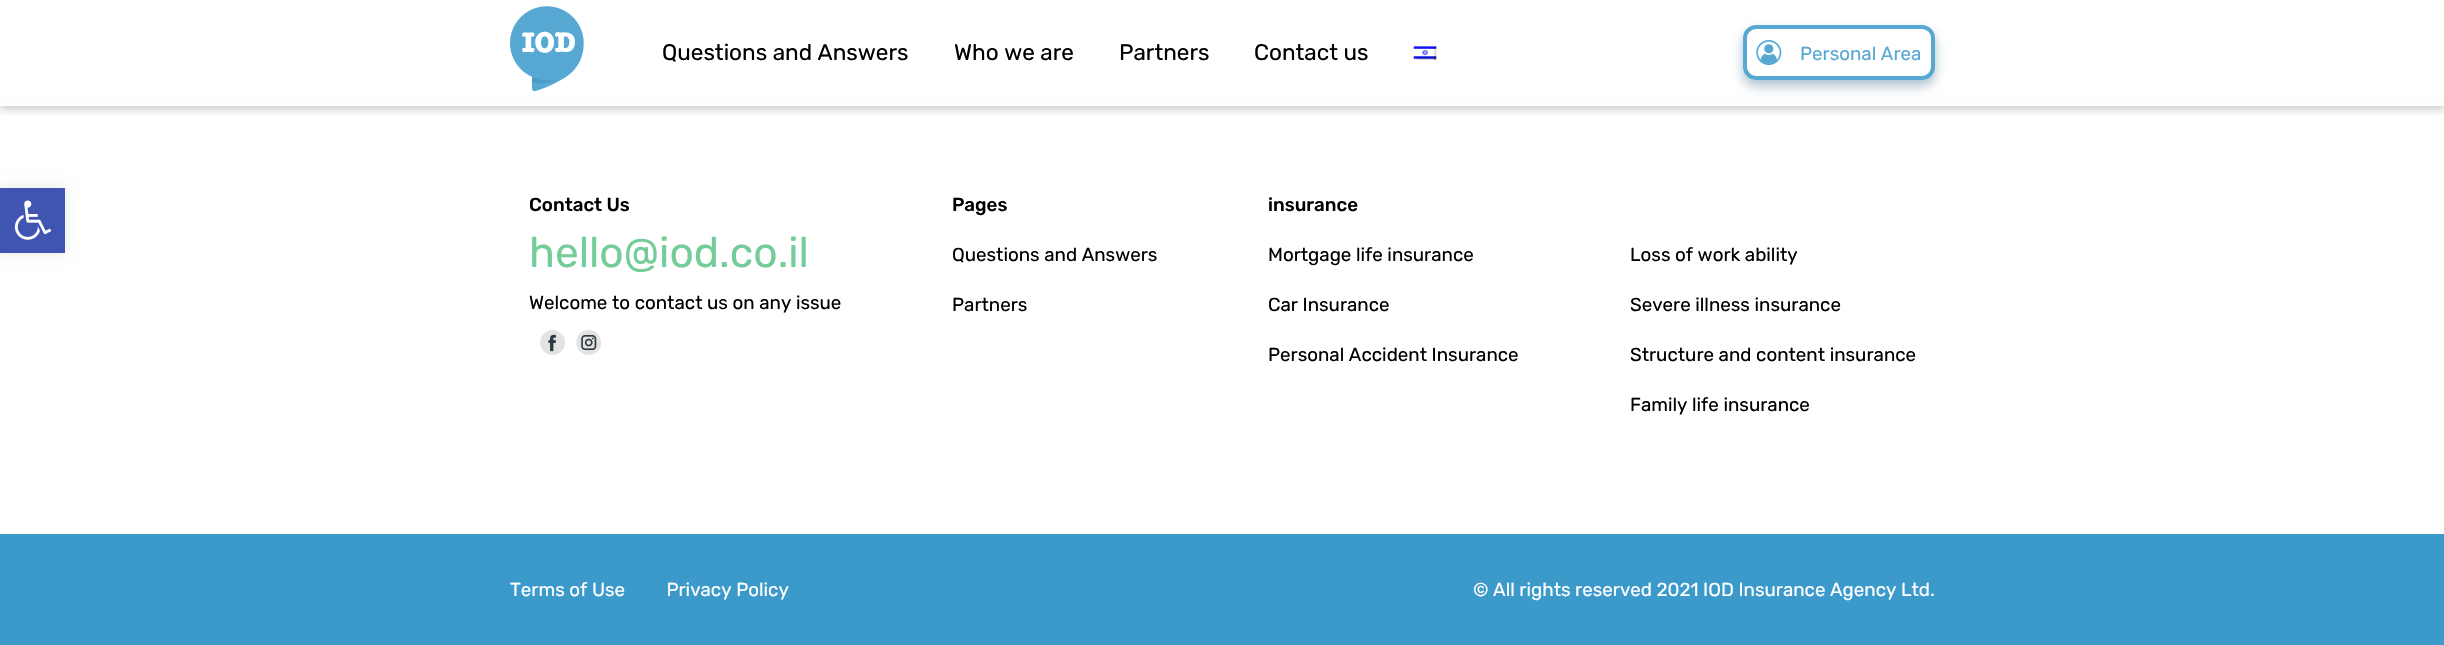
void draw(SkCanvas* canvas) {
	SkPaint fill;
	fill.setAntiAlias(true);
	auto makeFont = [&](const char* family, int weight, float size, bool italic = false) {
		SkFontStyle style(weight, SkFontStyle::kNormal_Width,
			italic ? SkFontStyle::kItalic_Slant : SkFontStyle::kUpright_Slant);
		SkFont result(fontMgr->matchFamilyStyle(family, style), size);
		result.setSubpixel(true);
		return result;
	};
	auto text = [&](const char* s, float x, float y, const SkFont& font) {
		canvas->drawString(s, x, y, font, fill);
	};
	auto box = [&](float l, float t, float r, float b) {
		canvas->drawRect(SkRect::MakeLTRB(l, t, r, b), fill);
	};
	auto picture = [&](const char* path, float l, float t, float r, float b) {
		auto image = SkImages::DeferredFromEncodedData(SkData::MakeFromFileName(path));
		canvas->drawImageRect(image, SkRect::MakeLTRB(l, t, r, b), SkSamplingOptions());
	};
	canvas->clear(0xFFFFFFFF);
	canvas->save();
	canvas->clipRect(SkRect::MakeLTRB(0, 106, 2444, 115));
	fill.setColor(0x30000000);
	fill.setMaskFilter(SkMaskFilter::MakeBlur(kNormal_SkBlurStyle, 4));
	canvas->drawRect(SkRect::MakeLTRB(0, 4, 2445, 110), fill);
	fill.setMaskFilter(nullptr);
	canvas->restore();
	fill.setColor(0xFF3C9ACA);
	box(0, 534, 2444, 645);
	canvas->save();
	canvas->clipRect(SkRect::MakeLTRB(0, 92, 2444, 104));
	fill.setColor(0x0D000000);
	fill.setMaskFilter(SkMaskFilter::MakeBlur(kNormal_SkBlurStyle, 9));
	canvas->drawRect(SkRect::MakeLTRB(0, 94, 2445, 524), fill);
	fill.setMaskFilter(nullptr);
	canvas->restore();
	fill.setColor(0xD9FFFFFF);
	box(0, 88, 2444, 104);
	picture("image0.png", 510, 6, 584, 91);
	picture("image1.png", 1413, 46, 1437, 60);
	canvas->save();
	canvas->clipPath(SkPathBuilder(SkPathFillType::kEvenOdd).moveTo(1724, 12).lineTo(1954, 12).lineTo(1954, 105).lineTo(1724, 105).close().moveTo(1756, 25).lineTo(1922, 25).cubicTo(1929, 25, 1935, 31, 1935, 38).lineTo(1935, 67).cubicTo(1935, 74, 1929, 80, 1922, 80).lineTo(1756, 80).cubicTo(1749, 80, 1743, 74, 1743, 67).lineTo(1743, 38).cubicTo(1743, 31, 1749, 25, 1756, 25).close().detach(), true);
	fill.setColor(0x916D90A7);
	fill.setMaskFilter(SkMaskFilter::MakeBlur(kNormal_SkBlurStyle, 6));
	canvas->drawRoundRect(SkRect::MakeLTRB(1743, 31, 1935, 86), 13, 13, fill);
	fill.setMaskFilter(nullptr);
	canvas->restore();
	fill.setStyle(SkPaint::kStroke_Style);
	fill.setStrokeWidth(4);
	fill.setColor(0xFF57A9D3);
	canvas->drawRoundRect(SkRect::MakeLTRB(1745, 27, 1933, 78), 11, 11, fill);
	picture("image2.png", 1756, 40, 1782, 66);
	fill.setStyle(SkPaint::kFill_Style);
	fill.setColor(0x1A000000);
	fill.setMaskFilter(SkMaskFilter::MakeBlur(kNormal_SkBlurStyle, 6));
	canvas->drawRect(SkRect::MakeLTRB(0, 188, 65, 253), fill);
	fill.setMaskFilter(nullptr);
	fill.setColor(0xFF4054B2);
	box(0, 188, 65, 253);
	picture("image3.png", 14, 200, 52, 240);
	picture("image4.png", 540, 330, 565, 355);
	picture("image5.png", 576, 330, 601, 355);
	auto font1 = makeFont("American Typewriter", 700, 28);
	fill.setColor(0xFFFFFFFF);
	text("IOD", 522, 52, font1);
	auto font2 = makeFont("Rubik", 400, 22.5f);
	fill.setColor(0xFF000000);
	text("Questions and Answers", 662, 60, font2);
	text("Who we are", 954, 60, font2);
	text("Partners", 1119, 60, font2);
	text("Contact us", 1254, 60, font2);
	auto font3 = makeFont("Rubik", 400, 18.75f);
	fill.setColor(0xFF57A9D3);
	text("Personal Area", 1800, 60, font3);
	auto font4 = makeFont("Rubik", 500, 18.75f);
	fill.setColor(0xFF000000);
	text("Contact Us", 529, 211, font4);
	auto font5 = makeFont("Rubik", 400, 42.5f);
	fill.setColor(0xFF74CC99);
	text("hello@iod.co.il", 529, 267, font5);
	fill.setColor(0xFF000000);
	text("Welcome to contact us on any issue", 529, 309, font3);
	text("Pages", 952, 211, font4);
	text("Questions and Answers", 952, 261, font3);
	text("Partners", 952, 311, font3);
	text("insurance", 1268, 211, font4);
	text("Mortgage life insurance", 1268, 261, font3);
	text("Car Insurance", 1268, 311, font3);
	text("Personal Accident Insurance", 1268, 361, font3);
	text("Loss of work ability", 1630, 261, font3);
	text("Severe illness insurance", 1630, 311, font3);
	text("Structure and content insurance", 1630, 361, font3);
	text("Family life insurance", 1630, 411, font3);
	fill.setColor(0xFFFFFFFF);
	text("Terms of Use         Privacy Policy", 510, 596, font3);
	text("© All rights reserved 2021 IOD Insurance Agency Ltd.", 1473, 596, font3);
}
